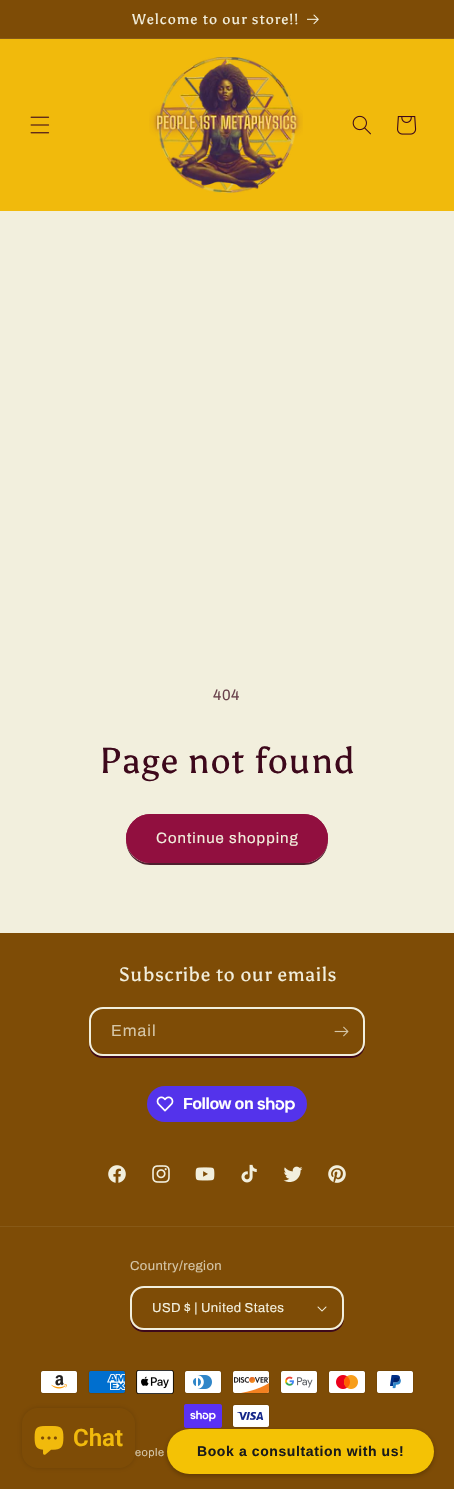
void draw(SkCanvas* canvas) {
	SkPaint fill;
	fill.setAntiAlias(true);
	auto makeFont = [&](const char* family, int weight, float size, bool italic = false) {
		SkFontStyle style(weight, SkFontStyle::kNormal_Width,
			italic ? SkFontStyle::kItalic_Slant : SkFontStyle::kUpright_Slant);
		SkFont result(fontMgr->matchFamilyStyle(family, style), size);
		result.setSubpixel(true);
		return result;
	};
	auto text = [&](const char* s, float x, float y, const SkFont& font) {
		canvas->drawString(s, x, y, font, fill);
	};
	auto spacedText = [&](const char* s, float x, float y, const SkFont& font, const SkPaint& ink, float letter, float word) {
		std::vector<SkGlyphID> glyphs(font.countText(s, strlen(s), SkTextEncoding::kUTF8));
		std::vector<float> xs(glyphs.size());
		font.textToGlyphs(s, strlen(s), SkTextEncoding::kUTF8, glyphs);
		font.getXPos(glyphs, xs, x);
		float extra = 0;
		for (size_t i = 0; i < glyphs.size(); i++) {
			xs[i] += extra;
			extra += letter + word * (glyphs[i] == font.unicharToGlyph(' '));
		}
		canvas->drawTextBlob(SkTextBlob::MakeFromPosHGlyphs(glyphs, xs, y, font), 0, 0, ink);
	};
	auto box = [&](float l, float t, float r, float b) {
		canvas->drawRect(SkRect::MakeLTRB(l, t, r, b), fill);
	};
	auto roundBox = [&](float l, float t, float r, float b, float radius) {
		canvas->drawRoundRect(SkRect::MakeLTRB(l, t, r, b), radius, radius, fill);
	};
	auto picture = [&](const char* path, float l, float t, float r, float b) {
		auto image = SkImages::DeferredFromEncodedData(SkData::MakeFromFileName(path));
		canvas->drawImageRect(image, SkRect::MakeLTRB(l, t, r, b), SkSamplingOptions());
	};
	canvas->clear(0xFFF2EFDD);
	fill.setColor(0xFF7E4C06);
	box(0, 0, 454, 38);
	fill.setColor(0xFF875917);
	box(0, 38, 454, 39);
	picture("image0.png", 307, 14, 319, 25);
	fill.setColor(0xFFF1BA0C);
	box(0, 39, 454, 211);
	picture("image1.png", 30, 116, 50, 134);
	picture("image2.png", 149, 57, 303, 193);
	picture("image3.png", 352, 115, 371, 135);
	picture("image4.png", 397, 116, 417, 135);
	fill.setColor(0xFF4F1F2E);
	canvas->drawPath(SkPathBuilder().moveTo(126, 840).cubicTo(126, 854, 137, 865, 150, 865).lineTo(304, 865).cubicTo(317, 865, 328, 854, 328, 840).cubicTo(327, 853, 317, 863, 304, 863).lineTo(150, 863).cubicTo(137, 863, 127, 853, 126, 840).close().detach(), fill);
	fill.setColor(0xFF910F3F);
	roundBox(126, 814, 328, 863, 24.5f);
	fill.setStyle(SkPaint::kStroke_Style);
	fill.setStrokeWidth(2);
	canvas->drawRoundRect(SkRect::MakeLTRB(127, 815, 327, 862), 23.5f, 23.5f, fill);
	fill.setStyle(SkPaint::kFill_Style);
	fill.setColor(0xFF7E4C06);
	box(0, 933, 454, 1489);
	fill.setColor(0x26000000);
	fill.setMaskFilter(SkMaskFilter::MakeBlur(kNormal_SkBlurStyle, 2.5f));
	canvas->drawRoundRect(SkRect::MakeLTRB(22, 1408, 135, 1468), 16, 16, fill);
	fill.setMaskFilter(nullptr);
	fill.setColor(0xFF7E4C06);
	roundBox(22, 1408, 135, 1468, 16);
	picture("image5.png", 34, 1426, 64, 1455);
	fill.setColor(0xFF3D081B);
	canvas->drawPath(SkPathBuilder().moveTo(89, 1042).lineTo(89, 1044).cubicTo(89, 1052, 95, 1058, 103, 1058).lineTo(351, 1058).cubicTo(359, 1058, 365, 1052, 365, 1044).lineTo(365, 1042).cubicTo(365, 1050, 359, 1056, 351, 1056).lineTo(103, 1056).cubicTo(95, 1056, 89, 1050, 89, 1042).close().detach(), fill);
	fill.setStyle(SkPaint::kStroke_Style);
	fill.setColor(0xFFF2EFDD);
	canvas->drawRoundRect(SkRect::MakeLTRB(90, 1008, 364, 1055), 13, 13, fill);
	picture("image6.png", 334, 1026, 349, 1037);
	fill.setStyle(SkPaint::kFill_Style);
	fill.setColor(0xFF5433EB);
	roundBox(147, 1086, 307, 1122, 18);
	picture("image7.png", 156, 1096, 174, 1112);
	picture("image8.png", 257, 1097, 295, 1113);
	picture("image9.png", 108, 1165, 126, 1183);
	picture("image10.png", 152, 1165, 170, 1183);
	picture("image11.png", 195, 1167, 215, 1181);
	picture("image12.png", 241, 1164, 257, 1183);
	picture("image13.png", 283, 1166, 303, 1182);
	picture("image14.png", 328, 1165, 346, 1183);
	fill.setColor(0xFF875917);
	box(0, 1226, 454, 1227);
	fill.setColor(0xFF3D081B);
	canvas->drawPath(SkPathBuilder().moveTo(130, 1316).lineTo(130, 1318).cubicTo(130, 1326, 136, 1332, 144, 1332).lineTo(330, 1332).cubicTo(338, 1332, 344, 1326, 344, 1318).lineTo(344, 1316).cubicTo(344, 1324, 338, 1330, 330, 1330).lineTo(144, 1330).cubicTo(136, 1330, 130, 1324, 130, 1316).close().detach(), fill);
	fill.setColor(0xFF7E4C06);
	roundBox(130, 1286, 344, 1330, 14);
	picture("image15.png", 317, 1306, 327, 1312);
	fill.setStyle(SkPaint::kStroke_Style);
	fill.setColor(0xFFF2EFDD);
	canvas->drawRoundRect(SkRect::MakeLTRB(131, 1287, 343, 1329), 13, 13, fill);
	picture("image16.png", 40, 1370, 78, 1394);
	picture("image17.png", 88, 1370, 126, 1394);
	picture("image18.png", 136, 1370, 174, 1394);
	picture("image19.png", 184, 1370, 222, 1394);
	picture("image20.png", 232, 1370, 270, 1394);
	picture("image21.png", 280, 1370, 318, 1394);
	picture("image22.png", 328, 1370, 366, 1394);
	picture("image23.png", 376, 1370, 414, 1394);
	picture("image24.png", 184, 1404, 222, 1428);
	picture("image25.png", 232, 1404, 270, 1428);
	fill.setStyle(SkPaint::kFill_Style);
	fill.setColor(0x40000000);
	fill.setMaskFilter(SkMaskFilter::MakeBlur(kNormal_SkBlurStyle, 2.5f));
	canvas->drawRoundRect(SkRect::MakeLTRB(167, 1431, 434, 1476), 22.5f, 22.5f, fill);
	fill.setMaskFilter(nullptr);
	fill.setColor(0xFFF4C205);
	roundBox(167, 1429, 434, 1474, 22.5f);
	auto font1 = makeFont("Asul", 400, 14.4f);
	fill.setColor(0xFFF2EFDD);
	spacedText("Welcome to our store!!", 132, 24, font1, fill, 1, 0);
	auto font2 = makeFont("Archivo", 400, 15);
	fill.setColor(0xFF6A424C);
	spacedText("404", 213, 700, font2, fill, 0.6f, 0);
	auto font3 = makeFont("Asul", 400, 36);
	fill.setColor(0xFF3D081B);
	spacedText("Page not found", 99, 773, font3, fill, 0.75f, 0);
	fill.setColor(0xFFF2EFDD);
	spacedText("Continue shopping", 156, 843, font2, fill, 1, 0);
	auto font4 = makeFont("Roboto", 600, 24);
	fill.setColor(0xFFF1BA0C);
	text("Chat", 73, 1446, font4);
	auto font5 = makeFont("Asul", 400, 19.25f);
	fill.setColor(0xFFF2EFDD);
	spacedText("Subscribe to our emails", 119, 981, font5, fill, 0.75f, 0);
	auto font6 = makeFont("Archivo", 400, 16);
	fill.setColor(0xFFD5C6A7);
	spacedText("Email", 111, 1036, font6, fill, 1, 0);
	auto font7 = makeFont("Liberation Sans", 700, 16);
	fill.setColor(0xFFFFFFFF);
	spacedText("Follow on", 183, 1109, font7, fill, -0.5f, 0);
	auto font8 = makeFont("Archivo", 400, 13);
	fill.setColor(0xFFD5C6A7);
	spacedText("Country/region", 130, 1270, font8, fill, 0.4f, 0);
	fill.setColor(0xFFF2EFDD);
	spacedText("USD $ | United States", 152, 1312, font8, fill, 0.4f, 0);
	auto font9 = makeFont("Archivo", 400, 11);
	fill.setColor(0xFFD5C6A7);
	spacedText("eople", 135, 1456, font9, fill, 0.5f, 0);
	auto font10 = makeFont("Liberation Sans", 700, 14);
	fill.setColor(0xFF1A1A1A);
	spacedText("Book a consultation with us!", 197, 1456, font10, fill, 0.6f, 0);
}
